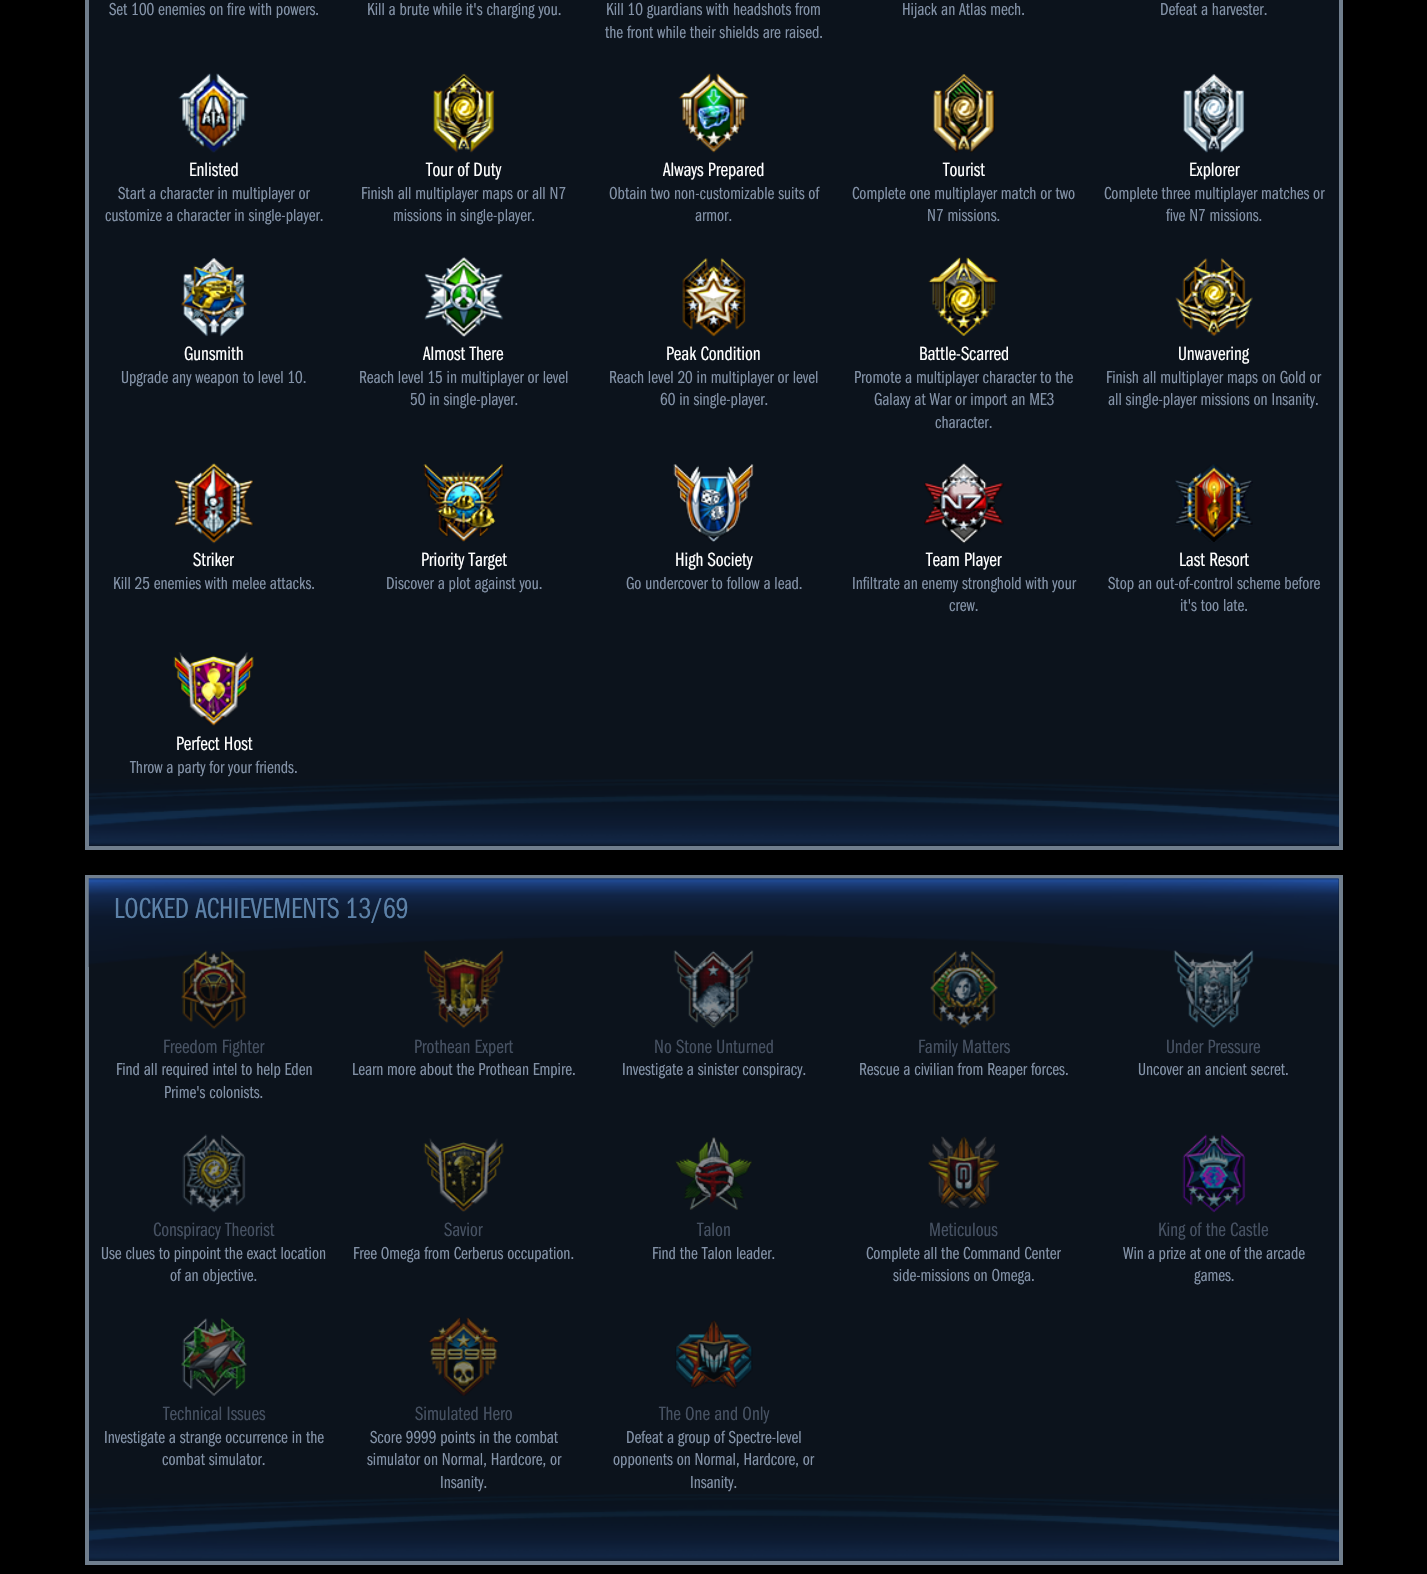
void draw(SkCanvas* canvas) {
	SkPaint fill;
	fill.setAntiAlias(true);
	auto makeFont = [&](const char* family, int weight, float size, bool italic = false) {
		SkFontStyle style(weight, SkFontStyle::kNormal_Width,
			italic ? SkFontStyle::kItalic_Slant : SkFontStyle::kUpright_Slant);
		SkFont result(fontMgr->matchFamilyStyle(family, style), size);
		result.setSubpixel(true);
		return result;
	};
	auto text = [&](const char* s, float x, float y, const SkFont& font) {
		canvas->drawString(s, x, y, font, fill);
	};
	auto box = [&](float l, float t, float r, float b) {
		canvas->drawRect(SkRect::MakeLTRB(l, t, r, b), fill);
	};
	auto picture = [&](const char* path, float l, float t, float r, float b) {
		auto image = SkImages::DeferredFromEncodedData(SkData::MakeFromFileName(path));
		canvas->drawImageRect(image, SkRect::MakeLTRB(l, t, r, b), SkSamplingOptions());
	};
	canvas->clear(0xFF000000);
	fill.setColor(0xFF0C131C);
	box(89, 0, 1339, 846);
	picture("image0.png", 89, 779, 1339, 846);
	fill.setStyle(SkPaint::kStroke_Style);
	fill.setStrokeWidth(4);
	fill.setColor(0xFF707E8D);
	canvas->drawRect(SkRect::MakeLTRB(87, -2, 1341, 848), fill);
	picture("image1.png", 178, 73, 249, 153);
	picture("image2.png", 433, 73, 495, 153);
	picture("image3.png", 678, 73, 749, 153);
	picture("image4.png", 933, 74, 995, 153);
	picture("image5.png", 1183, 74, 1245, 153);
	picture("image6.png", 181, 258, 247, 337);
	picture("image7.png", 424, 257, 504, 337);
	picture("image8.png", 682, 258, 746, 337);
	picture("image9.png", 928, 257, 999, 337);
	picture("image10.png", 1175, 258, 1253, 336);
	picture("image11.png", 174, 463, 254, 544);
	picture("image12.png", 423, 464, 504, 542);
	picture("image13.png", 673, 464, 754, 542);
	picture("image14.png", 924, 463, 1004, 544);
	picture("image15.png", 1175, 464, 1253, 542);
	picture("image16.png", 173, 652, 254, 726);
	fill.setStyle(SkPaint::kFill_Style);
	fill.setColor(0xFF0C131C);
	box(89, 879, 1339, 1561);
	picture("image17.png", 89, 1494, 1339, 1561);
	fill.setStyle(SkPaint::kStroke_Style);
	fill.setColor(0xFF707E8D);
	canvas->drawRect(SkRect::MakeLTRB(87, 877, 1341, 1563), fill);
	picture("image18.png", 88, 878, 1339, 967);
	picture("image19.png", 181, 950, 247, 1029);
	picture("image20.png", 423, 950, 504, 1029);
	picture("image21.png", 673, 950, 754, 1029);
	picture("image22.png", 930, 950, 998, 1029);
	picture("image23.png", 1173, 950, 1254, 1029);
	picture("image24.png", 182, 1134, 246, 1213);
	picture("image25.png", 423, 1138, 504, 1212);
	picture("image26.png", 675, 1137, 752, 1210);
	picture("image27.png", 928, 1136, 1000, 1209);
	picture("image28.png", 1182, 1134, 1246, 1213);
	picture("image29.png", 181, 1318, 247, 1396);
	picture("image30.png", 428, 1317, 499, 1396);
	picture("image31.png", 675, 1320, 753, 1389);
	auto font1 = makeFont("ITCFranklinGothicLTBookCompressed", 400, 18);
	fill.setStyle(SkPaint::kFill_Style);
	fill.setColor(0xFF8392A7);
	text("Set 100 enemies on fire with powers.", 109, 15, font1);
	text("Kill a brute while it's charging you.", 367, 15, font1);
	text("Kill 10 guardians with headshots from", 606, 15, font1);
	text("the front while their shields are raised.", 605, 38, font1);
	text("Hijack an Atlas mech.", 902, 15, font1);
	text("Defeat a harvester.", 1160, 15, font1);
	auto font2 = makeFont("ITCFranklinGothicLTBookCompressed", 400, 20);
	fill.setColor(0xFFFFFFFF);
	text("Enlisted", 189, 176, font2);
	fill.setColor(0xFF8392A7);
	text("Start a character in multiplayer or", 118, 199, font1);
	text("customize a character in single-player.", 105, 221, font1);
	fill.setColor(0xFFFFFFFF);
	text("Tour of Duty", 426, 176, font2);
	fill.setColor(0xFF8392A7);
	text("Finish all multiplayer maps or all N7", 361, 199, font1);
	text("missions in single-player.", 393, 221, font1);
	fill.setColor(0xFFFFFFFF);
	text("Always Prepared", 663, 176, font2);
	fill.setColor(0xFF8392A7);
	text("Obtain two non-customizable suits of", 609, 199, font1);
	text("armor.", 695, 221, font1);
	fill.setColor(0xFFFFFFFF);
	text("Tourist", 943, 176, font2);
	fill.setColor(0xFF8392A7);
	text("Complete one multiplayer match or two", 852, 199, font1);
	text("N7 missions.", 927, 221, font1);
	fill.setColor(0xFFFFFFFF);
	text("Explorer", 1189, 176, font2);
	fill.setColor(0xFF8392A7);
	text("Complete three multiplayer matches or", 1104, 199, font1);
	text("five N7 missions.", 1166, 221, font1);
	fill.setColor(0xFFFFFFFF);
	text("Gunsmith", 184, 360, font2);
	fill.setColor(0xFF8392A7);
	text("Upgrade any weapon to level 10.", 121, 383, font1);
	fill.setColor(0xFFFFFFFF);
	text("Almost There", 423, 360, font2);
	fill.setColor(0xFF8392A7);
	text("Reach level 15 in multiplayer or level", 359, 383, font1);
	text("50 in single-player.", 410, 405, font1);
	fill.setColor(0xFFFFFFFF);
	text("Peak Condition", 666, 360, font2);
	fill.setColor(0xFF8392A7);
	text("Reach level 20 in multiplayer or level", 609, 383, font1);
	text("60 in single-player.", 660, 405, font1);
	fill.setColor(0xFFFFFFFF);
	text("Battle-Scarred", 919, 360, font2);
	fill.setColor(0xFF8392A7);
	text("Promote a multiplayer character to the", 854, 383, font1);
	text("Galaxy at War or import an ME3", 874, 405, font1);
	text("character.", 935, 428, font1);
	fill.setColor(0xFFFFFFFF);
	text("Unwavering", 1178, 360, font2);
	fill.setColor(0xFF8392A7);
	text("Finish all multiplayer maps on Gold or", 1106, 383, font1);
	text("all single-player missions on Insanity.", 1108, 405, font1);
	fill.setColor(0xFFFFFFFF);
	text("Striker", 193, 566, font2);
	fill.setColor(0xFF8392A7);
	text("Kill 25 enemies with melee attacks.", 113, 589, font1);
	fill.setColor(0xFFFFFFFF);
	text("Priority Target", 421, 566, font2);
	fill.setColor(0xFF8392A7);
	text("Discover a plot against you.", 386, 589, font1);
	fill.setColor(0xFFFFFFFF);
	text("High Society", 675, 566, font2);
	fill.setColor(0xFF8392A7);
	text("Go undercover to follow a lead.", 626, 589, font1);
	fill.setColor(0xFFFFFFFF);
	text("Team Player", 926, 566, font2);
	fill.setColor(0xFF8392A7);
	text("Infiltrate an enemy stronghold with your", 852, 589, font1);
	text("crew.", 949, 611, font1);
	fill.setColor(0xFFFFFFFF);
	text("Last Resort", 1179, 566, font2);
	fill.setColor(0xFF8392A7);
	text("Stop an out-of-control scheme before", 1108, 589, font1);
	text("it's too late.", 1180, 611, font1);
	fill.setColor(0xFFFFFFFF);
	text("Perfect Host", 176, 750, font2);
	fill.setColor(0xFF8392A7);
	text("Throw a party for your friends.", 130, 773, font1);
	auto font3 = makeFont("ITCFranklinGothicLTBookCompressed", 400, 30);
	fill.setColor(0xFF5C81A8);
	text("LOCKED ACHIEVEMENTS 13/69", 114, 918, font3);
	fill.setColor(0xFF465162);
	text("Freedom Fighter", 163, 1053, font2);
	fill.setColor(0xFF8392A7);
	text("Find all required intel to help Eden", 116, 1075, font1);
	text("Prime's colonists.", 164, 1098, font1);
	fill.setColor(0xFF465162);
	text("Prothean Expert", 414, 1053, font2);
	fill.setColor(0xFF8392A7);
	text("Learn more about the Prothean Empire.", 352, 1075, font1);
	fill.setColor(0xFF465162);
	text("No Stone Unturned", 654, 1053, font2);
	fill.setColor(0xFF8392A7);
	text("Investigate a sinister conspiracy.", 622, 1075, font1);
	fill.setColor(0xFF465162);
	text("Family Matters", 918, 1053, font2);
	fill.setColor(0xFF8392A7);
	text("Rescue a civilian from Reaper forces.", 859, 1075, font1);
	fill.setColor(0xFF465162);
	text("Under Pressure", 1166, 1053, font2);
	fill.setColor(0xFF8392A7);
	text("Uncover an ancient secret.", 1138, 1075, font1);
	fill.setColor(0xFF465162);
	text("Conspiracy Theorist", 153, 1236, font2);
	fill.setColor(0xFF8392A7);
	text("Use clues to pinpoint the exact location", 101, 1259, font1);
	text("of an objective.", 170, 1281, font1);
	fill.setColor(0xFF465162);
	text("Savior", 444, 1236, font2);
	fill.setColor(0xFF8392A7);
	text("Free Omega from Cerberus occupation.", 353, 1259, font1);
	fill.setColor(0xFF465162);
	text("Talon", 697, 1236, font2);
	fill.setColor(0xFF8392A7);
	text("Find the Talon leader.", 652, 1259, font1);
	fill.setColor(0xFF465162);
	text("Meticulous", 929, 1236, font2);
	fill.setColor(0xFF8392A7);
	text("Complete all the Command Center", 866, 1259, font1);
	text("side-missions on Omega.", 893, 1281, font1);
	fill.setColor(0xFF465162);
	text("King of the Castle", 1158, 1236, font2);
	fill.setColor(0xFF8392A7);
	text("Win a prize at one of the arcade", 1123, 1259, font1);
	text("games.", 1194, 1281, font1);
	fill.setColor(0xFF465162);
	text("Technical Issues", 163, 1420, font2);
	fill.setColor(0xFF8392A7);
	text("Investigate a strange occurrence in the", 104, 1443, font1);
	text("combat simulator.", 162, 1465, font1);
	fill.setColor(0xFF465162);
	text("Simulated Hero", 415, 1420, font2);
	fill.setColor(0xFF8392A7);
	text("Score 9999 points in the combat", 370, 1443, font1);
	text("simulator on Normal, Hardcore, or", 367, 1465, font1);
	text("Insanity.", 440, 1488, font1);
	fill.setColor(0xFF465162);
	text("The One and Only", 659, 1420, font2);
	fill.setColor(0xFF8392A7);
	text("Defeat a group of Spectre-level", 626, 1443, font1);
	text("opponents on Normal, Hardcore, or", 613, 1465, font1);
	text("Insanity.", 690, 1488, font1);
}
